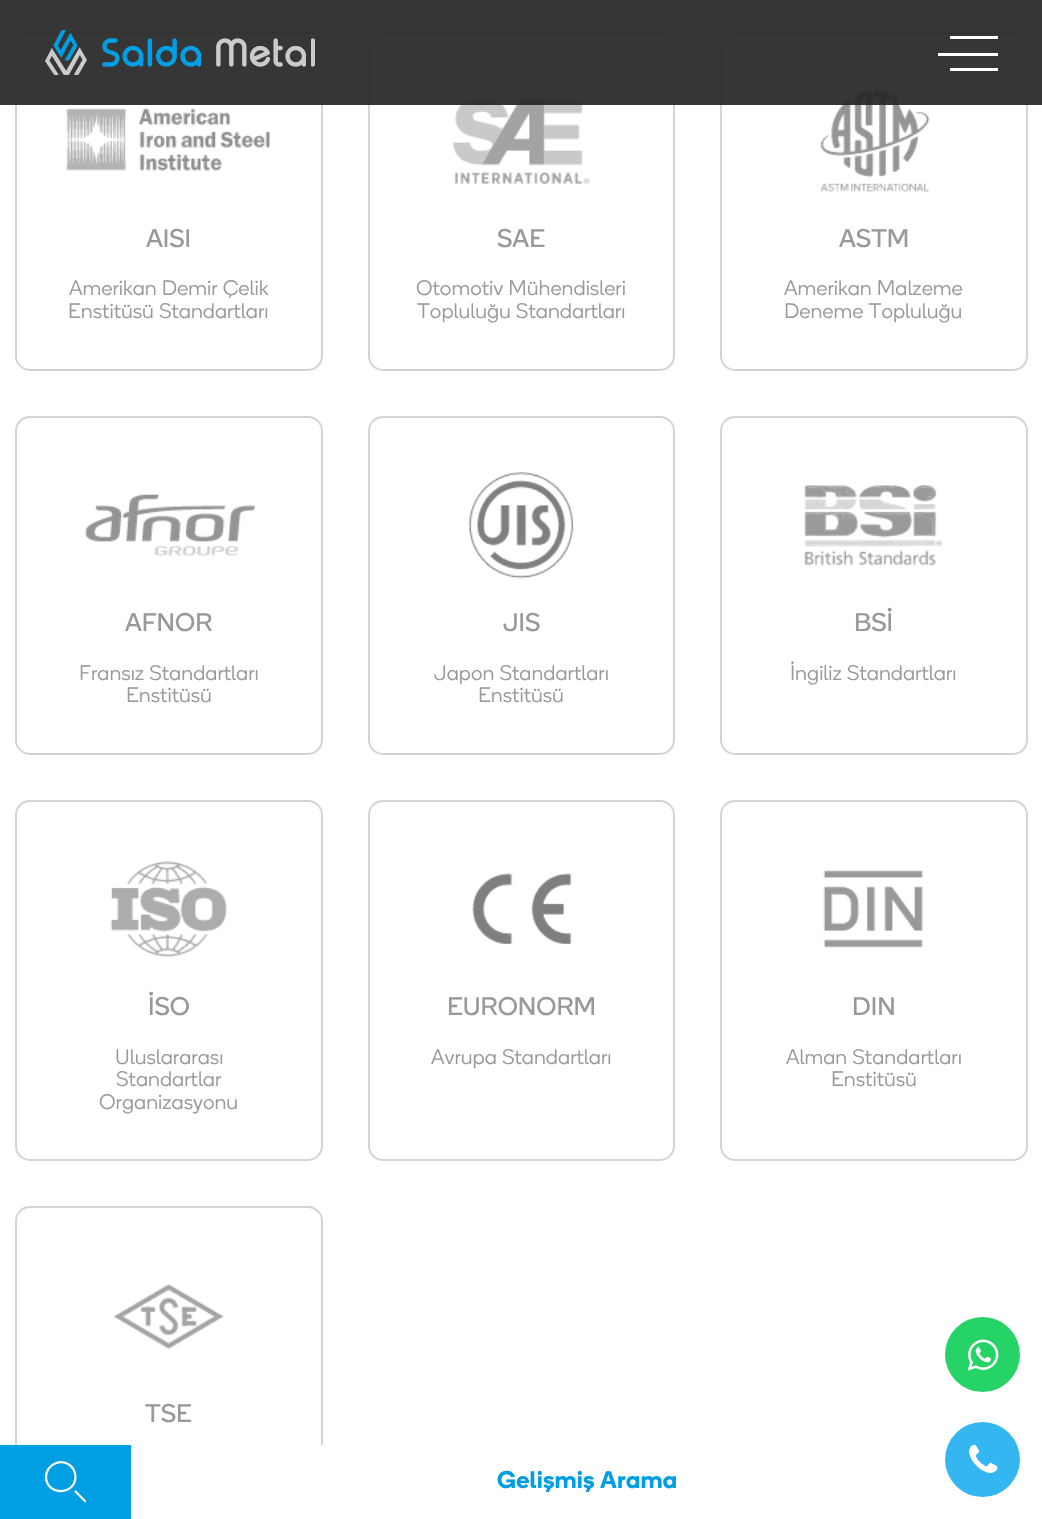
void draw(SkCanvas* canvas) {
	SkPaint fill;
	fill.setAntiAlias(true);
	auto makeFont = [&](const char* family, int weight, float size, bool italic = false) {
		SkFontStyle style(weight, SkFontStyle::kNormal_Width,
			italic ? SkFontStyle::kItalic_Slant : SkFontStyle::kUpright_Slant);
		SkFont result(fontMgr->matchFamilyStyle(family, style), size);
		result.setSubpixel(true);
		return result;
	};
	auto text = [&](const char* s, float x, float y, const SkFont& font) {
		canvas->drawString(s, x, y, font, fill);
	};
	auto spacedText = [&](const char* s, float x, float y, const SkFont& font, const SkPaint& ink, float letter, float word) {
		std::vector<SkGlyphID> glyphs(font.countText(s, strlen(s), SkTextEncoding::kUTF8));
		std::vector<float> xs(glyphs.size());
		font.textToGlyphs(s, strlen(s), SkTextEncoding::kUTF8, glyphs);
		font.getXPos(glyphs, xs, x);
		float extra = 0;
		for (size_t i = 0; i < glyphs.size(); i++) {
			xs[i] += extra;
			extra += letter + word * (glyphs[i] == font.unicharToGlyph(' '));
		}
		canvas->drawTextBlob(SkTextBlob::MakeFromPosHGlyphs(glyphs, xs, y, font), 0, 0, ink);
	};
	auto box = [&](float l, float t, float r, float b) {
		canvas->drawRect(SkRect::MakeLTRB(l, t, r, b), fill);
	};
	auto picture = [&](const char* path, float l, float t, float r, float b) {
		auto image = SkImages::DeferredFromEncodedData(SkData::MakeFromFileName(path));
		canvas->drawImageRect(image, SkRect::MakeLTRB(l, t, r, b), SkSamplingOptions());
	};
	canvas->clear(0xFFFFFFFF);
	fill.setStyle(SkPaint::kStroke_Style);
	fill.setStrokeWidth(2);
	fill.setColor(0xFFD4D4D4);
	canvas->drawRoundRect(SkRect::MakeLTRB(16, 33, 322, 370), 14, 14, fill);
	canvas->drawRoundRect(SkRect::MakeLTRB(369, 33, 674, 370), 14, 14, fill);
	picture("image2.png", 452, 97, 591, 184);
	canvas->drawRoundRect(SkRect::MakeLTRB(721, 33, 1027, 370), 14, 14, fill);
	picture("image3.png", 820, 90, 930, 192);
	fill.setStyle(SkPaint::kFill_Style);
	fill.setColor(0xEB252525);
	box(0, 0, 1042, 105);
	picture("image0.png", 45, 30, 315, 75);
	fill.setColor(0xFFFFFFFF);
	box(950, 36, 998, 39);
	box(938, 53, 998, 56);
	box(950, 68, 998, 71);
	picture("image1.png", 66, 108, 270, 171);
	fill.setStyle(SkPaint::kStroke_Style);
	fill.setColor(0xFFD4D4D4);
	canvas->drawRoundRect(SkRect::MakeLTRB(16, 417, 322, 754), 14, 14, fill);
	picture("image4.png", 85, 494, 256, 556);
	canvas->drawRoundRect(SkRect::MakeLTRB(369, 417, 674, 754), 14, 14, fill);
	picture("image5.png", 468, 472, 574, 579);
	canvas->drawRoundRect(SkRect::MakeLTRB(721, 417, 1027, 754), 14, 14, fill);
	picture("image6.png", 804, 485, 943, 566);
	canvas->drawRoundRect(SkRect::MakeLTRB(16, 801, 322, 1160), 14, 14, fill);
	picture("image7.png", 110, 861, 227, 958);
	canvas->drawRoundRect(SkRect::MakeLTRB(369, 801, 674, 1160), 14, 14, fill);
	picture("image8.png", 472, 873, 572, 944);
	canvas->drawRoundRect(SkRect::MakeLTRB(721, 801, 1027, 1160), 14, 14, fill);
	picture("image9.png", 823, 870, 923, 948);
	canvas->drawRoundRect(SkRect::MakeLTRB(16, 1207, 322, 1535), 14, 14, fill);
	picture("image10.png", 113, 1283, 224, 1350);
	fill.setStyle(SkPaint::kFill_Style);
	fill.setColor(0xFF25D366);
	canvas->drawCircle(982.5f, 1354.5f, 37.5f, fill);
	picture("image11.png", 967, 1339, 999, 1371);
	fill.setColor(0xFF34B7F1);
	canvas->drawCircle(982.5f, 1459.5f, 37.5f, fill);
	picture("image12.png", 969, 1444, 998, 1473);
	fill.setColor(0xFF009EE3);
	box(0, 1445, 131, 1519);
	fill.setStyle(SkPaint::kStroke_Style);
	fill.setStrokeWidth(2.2f);
	fill.setStrokeCap(SkPaint::kRound_Cap);
	fill.setStrokeJoin(SkPaint::kRound_Join);
	fill.setColor(0xFFFFFFFF);
	canvas->drawPath(SkPathBuilder().moveTo(75.5f, 1476.5f).cubicTo(75.5f, 1495.5f, 47, 1496, 46, 1477.5f).cubicTo(45.5f, 1463, 64.5f, 1456.5f, 73, 1468.5f).cubicTo(74.5f, 1471, 75.5f, 1474, 75.5f, 1476.5f).close().moveTo(85, 1501).lineTo(75.5f, 1491.5f).detach(), fill);
	fill.setStyle(SkPaint::kFill_Style);
	box(321, 1445, 323, 1519);
	auto font1 = makeFont("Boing", 400, 25.5f);
	fill.setColor(0xFF999999);
	text("AISI", 146, 247, font1);
	auto font2 = makeFont("Boing", 300, 21);
	text("Amerikan Demir Çelik", 69, 295, font2);
	text("Enstitüsü Standartları", 68, 318, font2);
	text("SAE", 497, 247, font1);
	text("Otomotiv Mühendisleri", 416, 295, font2);
	text("Topluluğu Standartları", 417, 318, font2);
	text("ASTM", 839, 247, font1);
	text("Amerikan Malzeme", 784, 295, font2);
	text("Deneme Topluluğu", 784, 318, font2);
	text("AFNOR", 125, 631, font1);
	text("Fransız Standartları", 79, 680, font2);
	text("Enstitüsü", 126, 702, font2);
	text("JIS", 503, 631, font1);
	text("Japon Standartları", 434, 680, font2);
	text("Enstitüsü", 478, 702, font2);
	text("BSİ", 854, 631, font1);
	text("İngiliz Standartları", 790, 680, font2);
	text("İSO", 148, 1015, font1);
	text("Uluslararası", 115, 1064, font2);
	text("Standartlar", 116, 1086, font2);
	text("Organizasyonu", 99, 1109, font2);
	text("EURONORM", 447, 1015, font1);
	text("Avrupa Standartları", 431, 1064, font2);
	text("DIN", 852, 1015, font1);
	text("Alman Standartları", 786, 1064, font2);
	text("Enstitüsü", 831, 1086, font2);
	text("TSE", 145, 1422, font1);
	auto font3 = makeFont("Boing", 600, 24);
	fill.setColor(0xFF009EE3);
	spacedText("Gelişmiş Arama", 497, 1488, font3, fill, 0.5f, 0);
}
